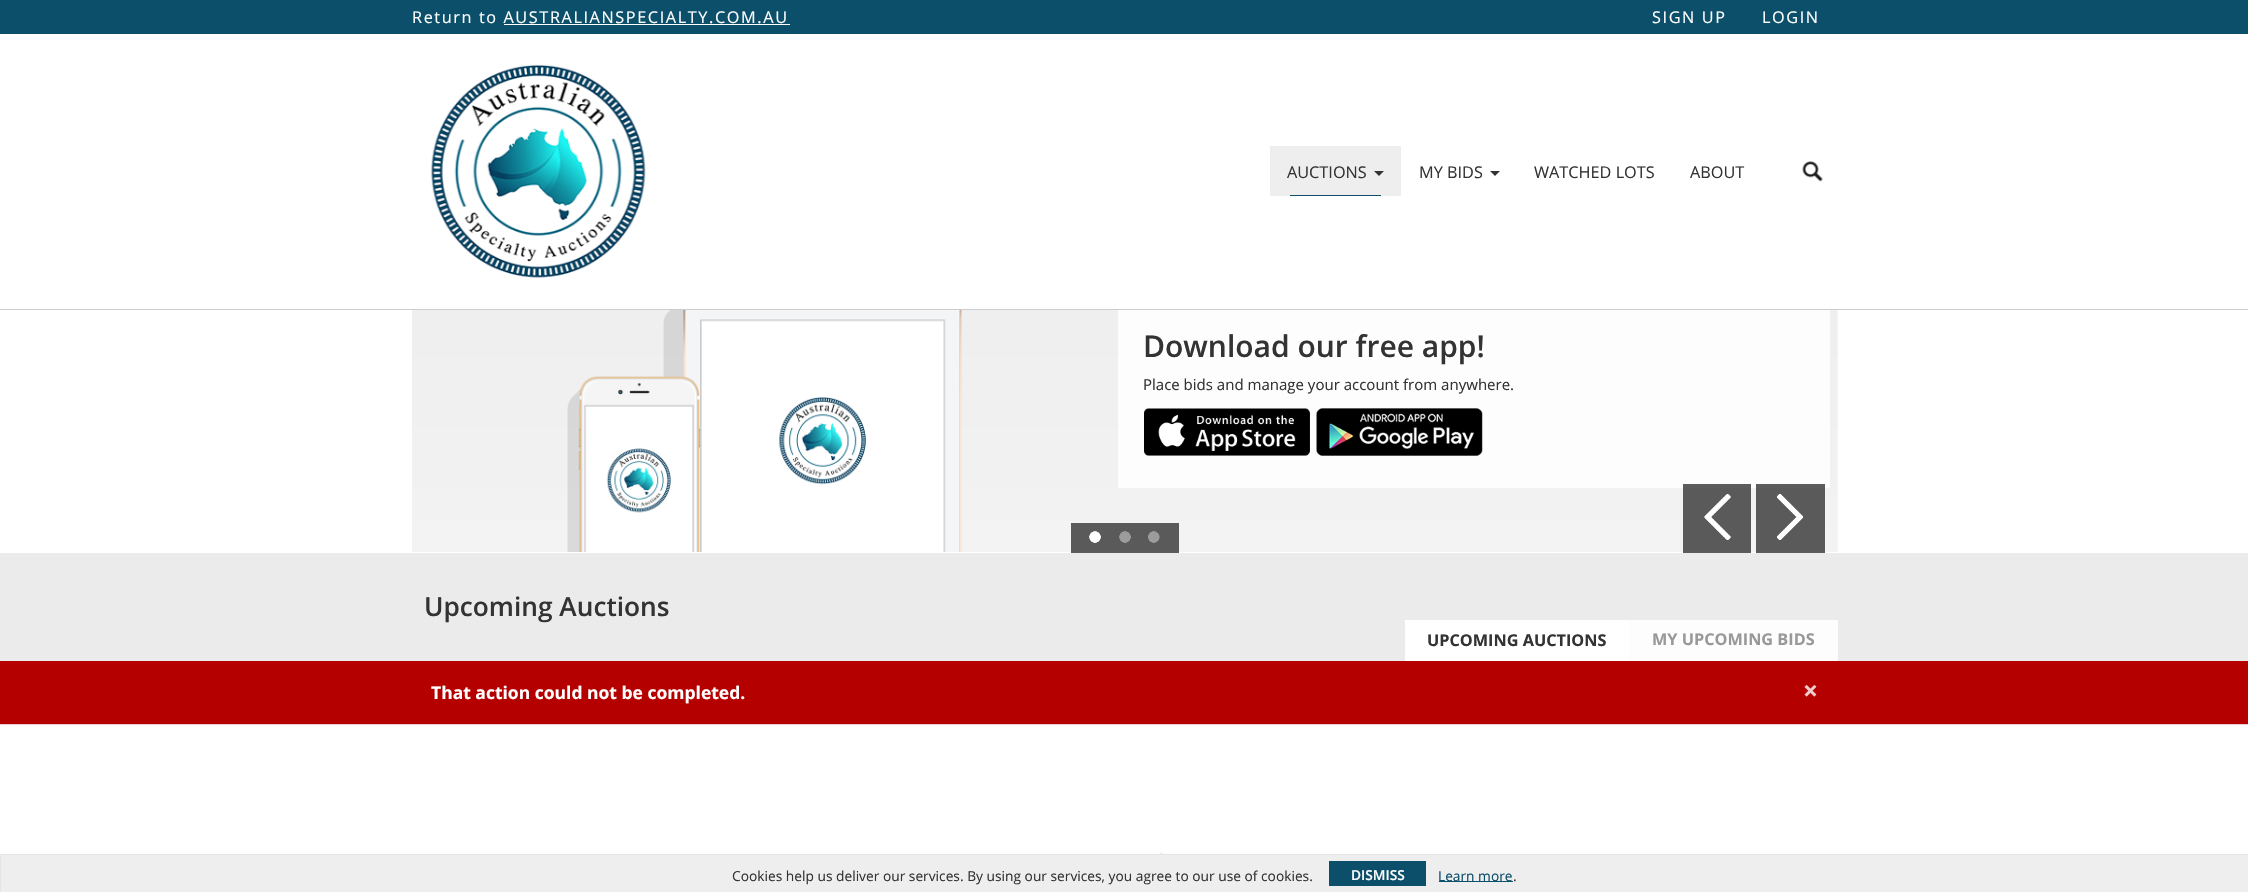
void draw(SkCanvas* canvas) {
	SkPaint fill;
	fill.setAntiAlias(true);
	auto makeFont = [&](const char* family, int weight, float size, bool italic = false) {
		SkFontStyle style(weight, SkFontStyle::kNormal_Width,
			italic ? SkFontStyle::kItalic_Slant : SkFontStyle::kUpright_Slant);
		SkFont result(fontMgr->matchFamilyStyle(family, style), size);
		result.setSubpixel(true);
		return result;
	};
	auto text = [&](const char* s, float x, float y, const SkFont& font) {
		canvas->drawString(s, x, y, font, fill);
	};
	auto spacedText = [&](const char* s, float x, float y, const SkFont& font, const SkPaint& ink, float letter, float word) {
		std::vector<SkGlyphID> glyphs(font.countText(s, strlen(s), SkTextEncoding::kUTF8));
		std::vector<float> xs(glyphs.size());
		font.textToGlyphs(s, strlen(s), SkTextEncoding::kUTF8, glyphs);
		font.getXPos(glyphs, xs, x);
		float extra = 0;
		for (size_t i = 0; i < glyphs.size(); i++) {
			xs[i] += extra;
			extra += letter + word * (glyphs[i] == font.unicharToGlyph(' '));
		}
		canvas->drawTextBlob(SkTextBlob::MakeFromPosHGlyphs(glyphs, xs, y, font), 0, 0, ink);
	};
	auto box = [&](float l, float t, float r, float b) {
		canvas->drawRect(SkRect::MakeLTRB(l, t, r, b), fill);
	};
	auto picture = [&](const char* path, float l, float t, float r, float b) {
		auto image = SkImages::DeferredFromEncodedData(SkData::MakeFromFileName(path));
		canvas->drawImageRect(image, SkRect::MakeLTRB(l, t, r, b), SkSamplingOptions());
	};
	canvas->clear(0xFFFFFFFF);
	fill.setColor(0xFF0C4F6A);
	box(0, 0, 2248, 34);
	fill.setColor(0xFFFFFFFF);
	box(504, 24, 790, 25);
	picture("image0.png", 430, 64, 646, 278);
	fill.setColor(0xFFEEEEEE);
	box(1270, 146, 1401, 196);
	fill.setColor(0xFF333333);
	canvas->drawPath(SkPathBuilder().moveTo(1374, 171).lineTo(1384, 171).lineTo(1379, 176).close().detach(), fill);
	fill.setColor(0xFF0C4F6A);
	box(1290, 195, 1381, 196);
	fill.setColor(0xFF333333);
	canvas->drawPath(SkPathBuilder().moveTo(1490, 171).lineTo(1500, 171).lineTo(1495, 176).close().detach(), fill);
	picture("image1.png", 1802, 161, 1823, 182);
	fill.setColor(0xFFCCCCCC);
	box(0, 309, 2248, 310);
	picture("image2.png", 412, 310, 1838, 552);
	picture("image3.png", 567, 310, 962, 552);
	fill.setColor(0xFFFDFDFD);
	box(1118, 310, 1830, 488);
	picture("image4.png", 1144, 408, 1310, 456);
	picture("image5.png", 1316, 408, 1483, 456);
	fill.setColor(0xCC333333);
	box(1071, 523, 1110, 553);
	picture("image6.png", 1089, 531, 1101, 543);
	box(1110, 523, 1140, 553);
	picture("image7.png", 1119, 531, 1131, 543);
	box(1140, 523, 1179, 553);
	picture("image8.png", 1148, 531, 1160, 543);
	box(1683, 484, 1751, 553);
	picture("image9.png", 1704, 494, 1731, 540);
	box(1756, 484, 1825, 553);
	picture("image10.png", 1777, 494, 1803, 540);
	fill.setColor(0xFFEBEBEB);
	box(0, 553, 2248, 661);
	fill.setColor(0xFFFFFFFF);
	box(1405, 620, 1629, 661);
	fill.setColor(0xFFFDFDFD);
	box(1629, 620, 1838, 661);
	fill.setColor(0xFFB50000);
	box(0, 661, 2248, 724);
	fill.setColor(0xFFEBCCD1);
	box(0, 724, 2248, 725);
	picture("image11.png", 1159, 852, 1163, 854);
	fill.setColor(0xFFEEEEEE);
	box(1, 855, 2248, 892);
	fill.setColor(0xFFE4E4E4);
	box(0, 854, 2248, 855);
	box(0, 854, 1, 892);
	fill.setColor(0xFF0C4F6A);
	box(1329, 861, 1426, 886);
	box(1439, 881, 1513, 882);
	auto font1 = makeFont("Open Sans", 400, 16.25f);
	fill.setColor(0xFFFFFFFF);
	spacedText("Return to AUSTRALIANSPECIALTY.COM.AU", 412, 23, font1, fill, 1.6f, 0);
	spacedText("SIGN UP", 1652, 23, font1, fill, 1.6f, 0);
	spacedText("LOGIN", 1762, 23, font1, fill, 1.6f, 0);
	fill.setColor(0xFF333333);
	text("AUCTIONS", 1287, 178, font1);
	text("MY BIDS", 1419, 178, font1);
	text("WATCHED LOTS", 1534, 178, font1);
	text("ABOUT", 1690, 178, font1);
	auto font2 = makeFont("Open Sans", 600, 30);
	text("Download our free app!", 1143, 357, font2);
	auto font3 = makeFont("Open Sans", 400, 15);
	text("Place bids and manage your account from anywhere.", 1143, 390, font3);
	auto font4 = makeFont("Open Sans", 600, 26.25f);
	text("Upcoming Auctions", 424, 616, font4);
	auto font5 = makeFont("Open Sans", 700, 16.25f);
	text("UPCOMING AUCTIONS", 1427, 646, font5);
	fill.setColor(0xFF999999);
	text("MY UPCOMING BIDS", 1652, 645, font5);
	auto font6 = makeFont("Open Sans", 700, 17.5f);
	fill.setColor(0xFFFFFFFF);
	text("That action could not be completed.", 431, 699, font6);
	auto font7 = makeFont("Open Sans", 700, 26.25f);
	fill.setColor(0xFFF0CCCC);
	text("×", 1803, 700, font7);
	auto font8 = makeFont("Open Sans", 400, 13.75f);
	fill.setColor(0xFF333333);
	text("Cookies help us deliver our services. By using our services, you agree to our use of cookies.", 732, 881, font8);
	auto font9 = makeFont("Open Sans", 600, 13.75f);
	fill.setColor(0xFFFFFFFF);
	text("DISMISS", 1351, 880, font9);
	fill.setColor(0xFF0C4F6A);
	text("Learn more", 1438, 881, font8);
	fill.setColor(0xFF333333);
	text(".", 1513, 881, font8);
}
